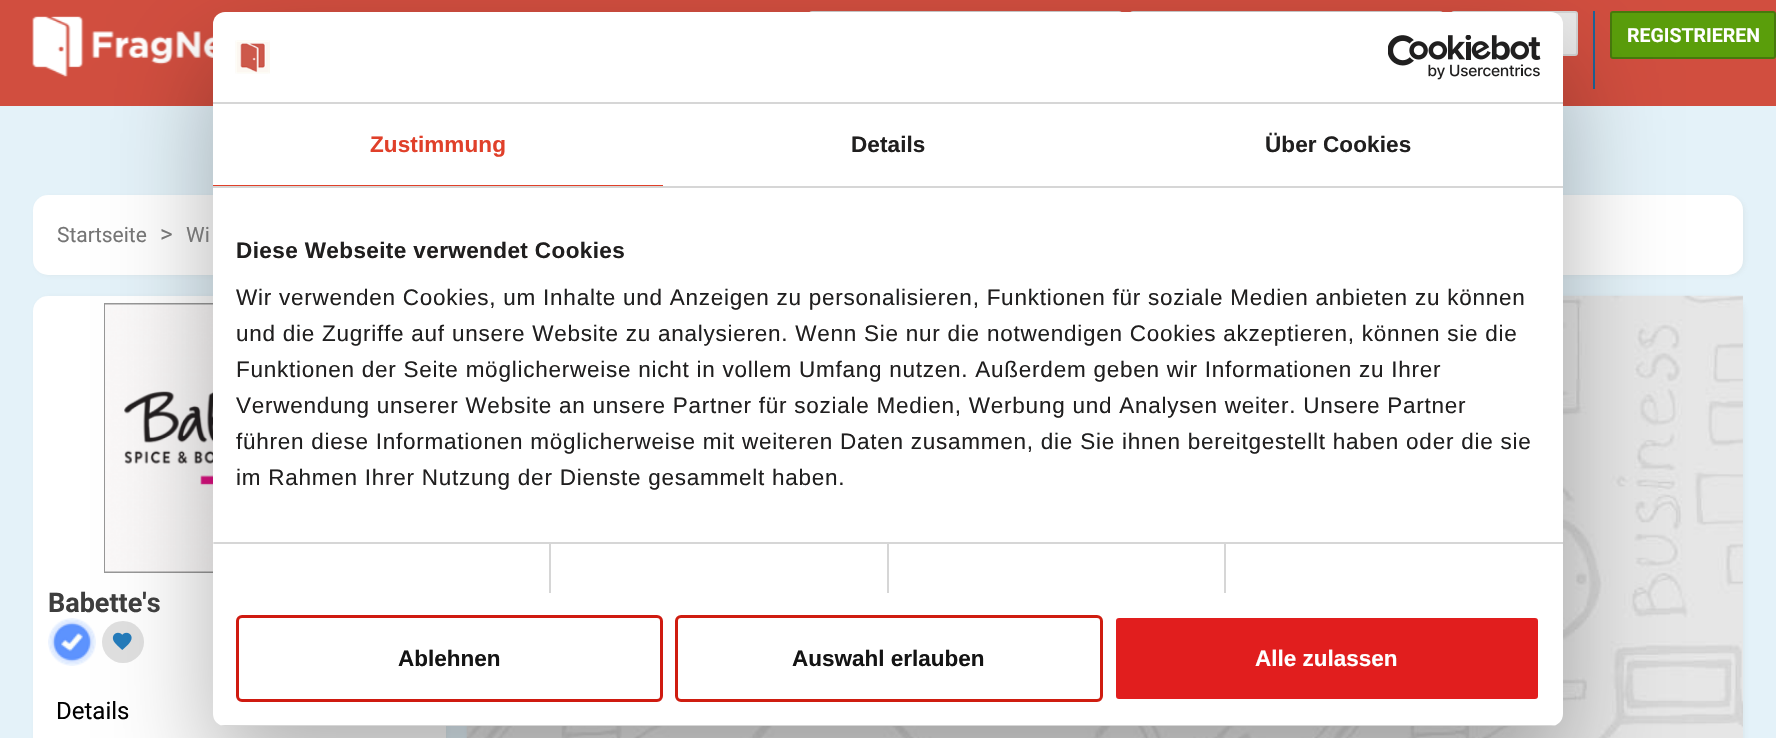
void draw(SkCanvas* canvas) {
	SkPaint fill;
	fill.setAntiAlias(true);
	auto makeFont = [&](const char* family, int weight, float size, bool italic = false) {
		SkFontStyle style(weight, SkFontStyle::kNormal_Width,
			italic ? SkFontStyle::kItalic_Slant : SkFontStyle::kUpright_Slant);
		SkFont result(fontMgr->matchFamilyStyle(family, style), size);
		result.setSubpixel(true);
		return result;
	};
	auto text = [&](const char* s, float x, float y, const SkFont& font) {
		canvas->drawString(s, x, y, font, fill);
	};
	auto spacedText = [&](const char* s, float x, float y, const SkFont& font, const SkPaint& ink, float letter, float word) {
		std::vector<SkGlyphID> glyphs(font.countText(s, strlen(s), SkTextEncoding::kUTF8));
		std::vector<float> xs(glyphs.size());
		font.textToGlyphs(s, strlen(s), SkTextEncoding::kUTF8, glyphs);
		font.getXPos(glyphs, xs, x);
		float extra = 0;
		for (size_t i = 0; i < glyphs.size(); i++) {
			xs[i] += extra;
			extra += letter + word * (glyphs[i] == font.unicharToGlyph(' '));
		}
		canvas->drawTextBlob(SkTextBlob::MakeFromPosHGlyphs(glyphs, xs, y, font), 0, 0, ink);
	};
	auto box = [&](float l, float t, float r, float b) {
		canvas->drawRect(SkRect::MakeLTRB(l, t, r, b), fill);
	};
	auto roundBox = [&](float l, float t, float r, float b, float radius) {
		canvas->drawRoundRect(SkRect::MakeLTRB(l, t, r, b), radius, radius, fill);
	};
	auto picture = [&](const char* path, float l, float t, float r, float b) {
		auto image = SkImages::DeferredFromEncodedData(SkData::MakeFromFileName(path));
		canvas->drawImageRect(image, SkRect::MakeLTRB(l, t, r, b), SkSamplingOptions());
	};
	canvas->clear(0xFFE4F2F9);
	fill.setColor(0xFFD14E3F);
	box(0, 0, 1776, 106);
	picture("image0.png", 32, 16, 213, 77);
	fill.setStyle(SkPaint::kStroke_Style);
	fill.setStrokeWidth(2);
	fill.setColor(0xFFCCCCCC);
	canvas->drawRoundRect(SkRect::MakeLTRB(810, 12, 1121, 55), 2, 2, fill);
	canvas->drawRoundRect(SkRect::MakeLTRB(1131, 12, 1442, 55), 2, 2, fill);
	fill.setStyle(SkPaint::kFill_Style);
	fill.setColor(0xFFEAEAEA);
	canvas->drawRoundRect(SkRect::MakeLTRB(1452, 12, 1577, 55), 2, 2, fill);
	fill.setStyle(SkPaint::kStroke_Style);
	fill.setColor(0xFFD5D5D5);
	canvas->drawRoundRect(SkRect::MakeLTRB(1452, 12, 1577, 55), 2, 2, fill);
	fill.setStyle(SkPaint::kFill_Style);
	fill.setColor(0xFF1E6396);
	box(1593, 11, 1595, 89);
	fill.setColor(0xFF5A9E0B);
	canvas->drawRoundRect(SkRect::MakeLTRB(1611, 12, 1775, 58), 2, 2, fill);
	fill.setStyle(SkPaint::kStroke_Style);
	fill.setColor(0xFF47790C);
	canvas->drawRoundRect(SkRect::MakeLTRB(1611, 12, 1775, 58), 2, 2, fill);
	fill.setStyle(SkPaint::kFill_Style);
	fill.setColor(0x1A919191);
	fill.setMaskFilter(SkMaskFilter::MakeBlur(kNormal_SkBlurStyle, 2));
	canvas->drawRoundRect(SkRect::MakeLTRB(35, 197, 1745, 276), 15, 15, fill);
	fill.setMaskFilter(nullptr);
	fill.setColor(0xFFFFFFFF);
	roundBox(33, 195, 1743, 275, 15);
	fill.setColor(0x1A919191);
	fill.setMaskFilter(SkMaskFilter::MakeBlur(kNormal_SkBlurStyle, 2));
	canvas->drawRoundRect(SkRect::MakeLTRB(35, 297, 447, 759), 15, 15, fill);
	fill.setMaskFilter(nullptr);
	fill.setColor(0xFFFFFFFF);
	roundBox(33, 296, 446, 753, 15);
	fill.setStyle(SkPaint::kStroke_Style);
	fill.setColor(0xFF979797);
	canvas->drawRect(SkRect::MakeLTRB(105, 304, 373, 572), fill);
	picture("image1.png", 105, 304, 213, 572);
	picture("image2.png", 48, 618, 96, 666);
	fill.setStyle(SkPaint::kFill_Style);
	fill.setColor(0xFFE0E0E0);
	canvas->drawCircle(123, 642, 21, fill);
	picture("image3.png", 112, 632, 132, 650);
	fill.setColor(0x1A919191);
	fill.setMaskFilter(SkMaskFilter::MakeBlur(kNormal_SkBlurStyle, 2));
	canvas->drawRoundRect(SkRect::MakeLTRB(468, 297, 1745, 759), 15, 15, fill);
	fill.setMaskFilter(nullptr);
	picture("image4.png", 466, 295, 1743, 738);
	fill.setColor(0x4D000000);
	fill.setMaskFilter(SkMaskFilter::MakeBlur(kNormal_SkBlurStyle, 51));
	canvas->drawRoundRect(SkRect::MakeLTRB(213, 60, 1563, 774), 12, 12, fill);
	fill.setMaskFilter(nullptr);
	fill.setColor(0xFFFFFFFF);
	roundBox(213, 12, 1563, 726, 12);
	fill.setColor(0xFFD6D6D6);
	box(213, 102, 1563, 104);
	picture("image5.png", 235, 40, 270, 74);
	picture("image6.png", 1388, 35, 1541, 80);
	box(213, 186, 1563, 188);
	fill.setColor(0xFFE0402A);
	box(213, 185, 663, 186);
	fill.setColor(0xFFD6D6D6);
	box(549, 543, 551, 593);
	box(887, 543, 889, 593);
	box(1224, 543, 1226, 593);
	box(213, 542, 1563, 544);
	fill.setColor(0xFFE5E5E5);
	box(213, 542, 214, 544);
	canvas->save();
	canvas->clipPath(SkPathBuilder().moveTo(225, 12).lineTo(1551, 12).cubicTo(1557.5f, 12, 1563, 17.5f, 1563, 24).lineTo(1563, 714).cubicTo(1563, 720.5f, 1557.5f, 726, 1551, 726).lineTo(225, 726).cubicTo(218.5f, 726, 213, 720.5f, 213, 714).lineTo(213, 24).cubicTo(213, 17.5f, 218.5f, 12, 225, 12).close().detach(), true);
	fill.setColor(0xFFD6D6D6);
	box(213, 725, 1563, 726);
	canvas->restore();
	fill.setStyle(SkPaint::kStroke_Style);
	fill.setStrokeWidth(3);
	fill.setColor(0xFFCF1A10);
	canvas->drawRoundRect(SkRect::MakeLTRB(237.5f, 616.5f, 661.5f, 700.5f), 4.5f, 4.5f, fill);
	fill.setColor(0xFFCF1D10);
	canvas->drawRoundRect(SkRect::MakeLTRB(676.5f, 616.5f, 1101.5f, 700.5f), 4.5f, 4.5f, fill);
	fill.setStyle(SkPaint::kFill_Style);
	fill.setColor(0xFFE11E1E);
	canvas->drawRoundRect(SkRect::MakeLTRB(1114.5f, 616.5f, 1539.5f, 700.5f), 4.5f, 4.5f, fill);
	fill.setStyle(SkPaint::kStroke_Style);
	fill.setColor(0xFFFFFFFF);
	canvas->drawRoundRect(SkRect::MakeLTRB(1114.5f, 616.5f, 1539.5f, 700.5f), 4.5f, 4.5f, fill);
	auto font1 = makeFont("Roboto", 700, 19.5f);
	fill.setStyle(SkPaint::kFill_Style);
	text("REGISTRIEREN", 1627, 42, font1);
	auto font2 = makeFont("Roboto", 400, 21);
	fill.setColor(0xFF757575);
	text("Startseite", 57, 242, font2);
	auto font3 = makeFont("Roboto", 400, 24);
	text(">", 160, 242, font3);
	text("Wi", 186, 242, font2);
	auto font4 = makeFont("Roboto", 700, 27);
	fill.setColor(0xFF3E3E3E);
	text("Babette's", 48, 612, font4);
	fill.setColor(0xFF000000);
	text("Details", 56, 719, font3);
	auto font5 = makeFont("Liberation Sans", 700, 22.5f);
	fill.setColor(0xFFE0402A);
	spacedText("Zustimmung", 370, 152, font5, fill, 0.1f, 0);
	fill.setColor(0xFF201F1F);
	spacedText("Details", 851, 152, font5, fill, 0.1f, 0);
	spacedText("Über Cookies", 1265, 152, font5, fill, 0.1f, 0);
	spacedText("Diese Webseite verwendet Cookies", 236, 258, font5, fill, 0.4f, 0);
	auto font6 = makeFont("Liberation Sans", 400, 22.5f);
	spacedText("Wir verwenden Cookies, um Inhalte und Anzeigen zu personalisieren, Funktionen für soziale Medien anbieten zu können", 236, 305, font6, fill, 0.75f, 0);
	spacedText("und die Zugriffe auf unsere Website zu analysieren. Wenn Sie nur die notwendigen Cookies akzeptieren, können sie die", 236, 341, font6, fill, 0.75f, 0);
	spacedText("Funktionen der Seite möglicherweise nicht in vollem Umfang nutzen. Außerdem geben wir Informationen zu Ihrer", 236, 377, font6, fill, 0.75f, 0);
	spacedText("Verwendung unserer Website an unsere Partner für soziale Medien, Werbung und Analysen weiter. Unsere Partner", 236, 413, font6, fill, 0.75f, 0);
	spacedText("führen diese Informationen möglicherweise mit weiteren Daten zusammen, die Sie ihnen bereitgestellt haben oder die sie", 236, 449, font6, fill, 0.75f, 0);
	spacedText("im Rahmen Ihrer Nutzung der Dienste gesammelt haben.", 236, 485, font6, fill, 0.75f, 0);
	fill.setColor(0xFF141414);
	text("Ablehnen", 398, 666, font5);
	text("Auswahl erlauben", 792, 666, font5);
	fill.setColor(0xFFFFFFFF);
	text("Alle zulassen", 1255, 666, font5);
}
